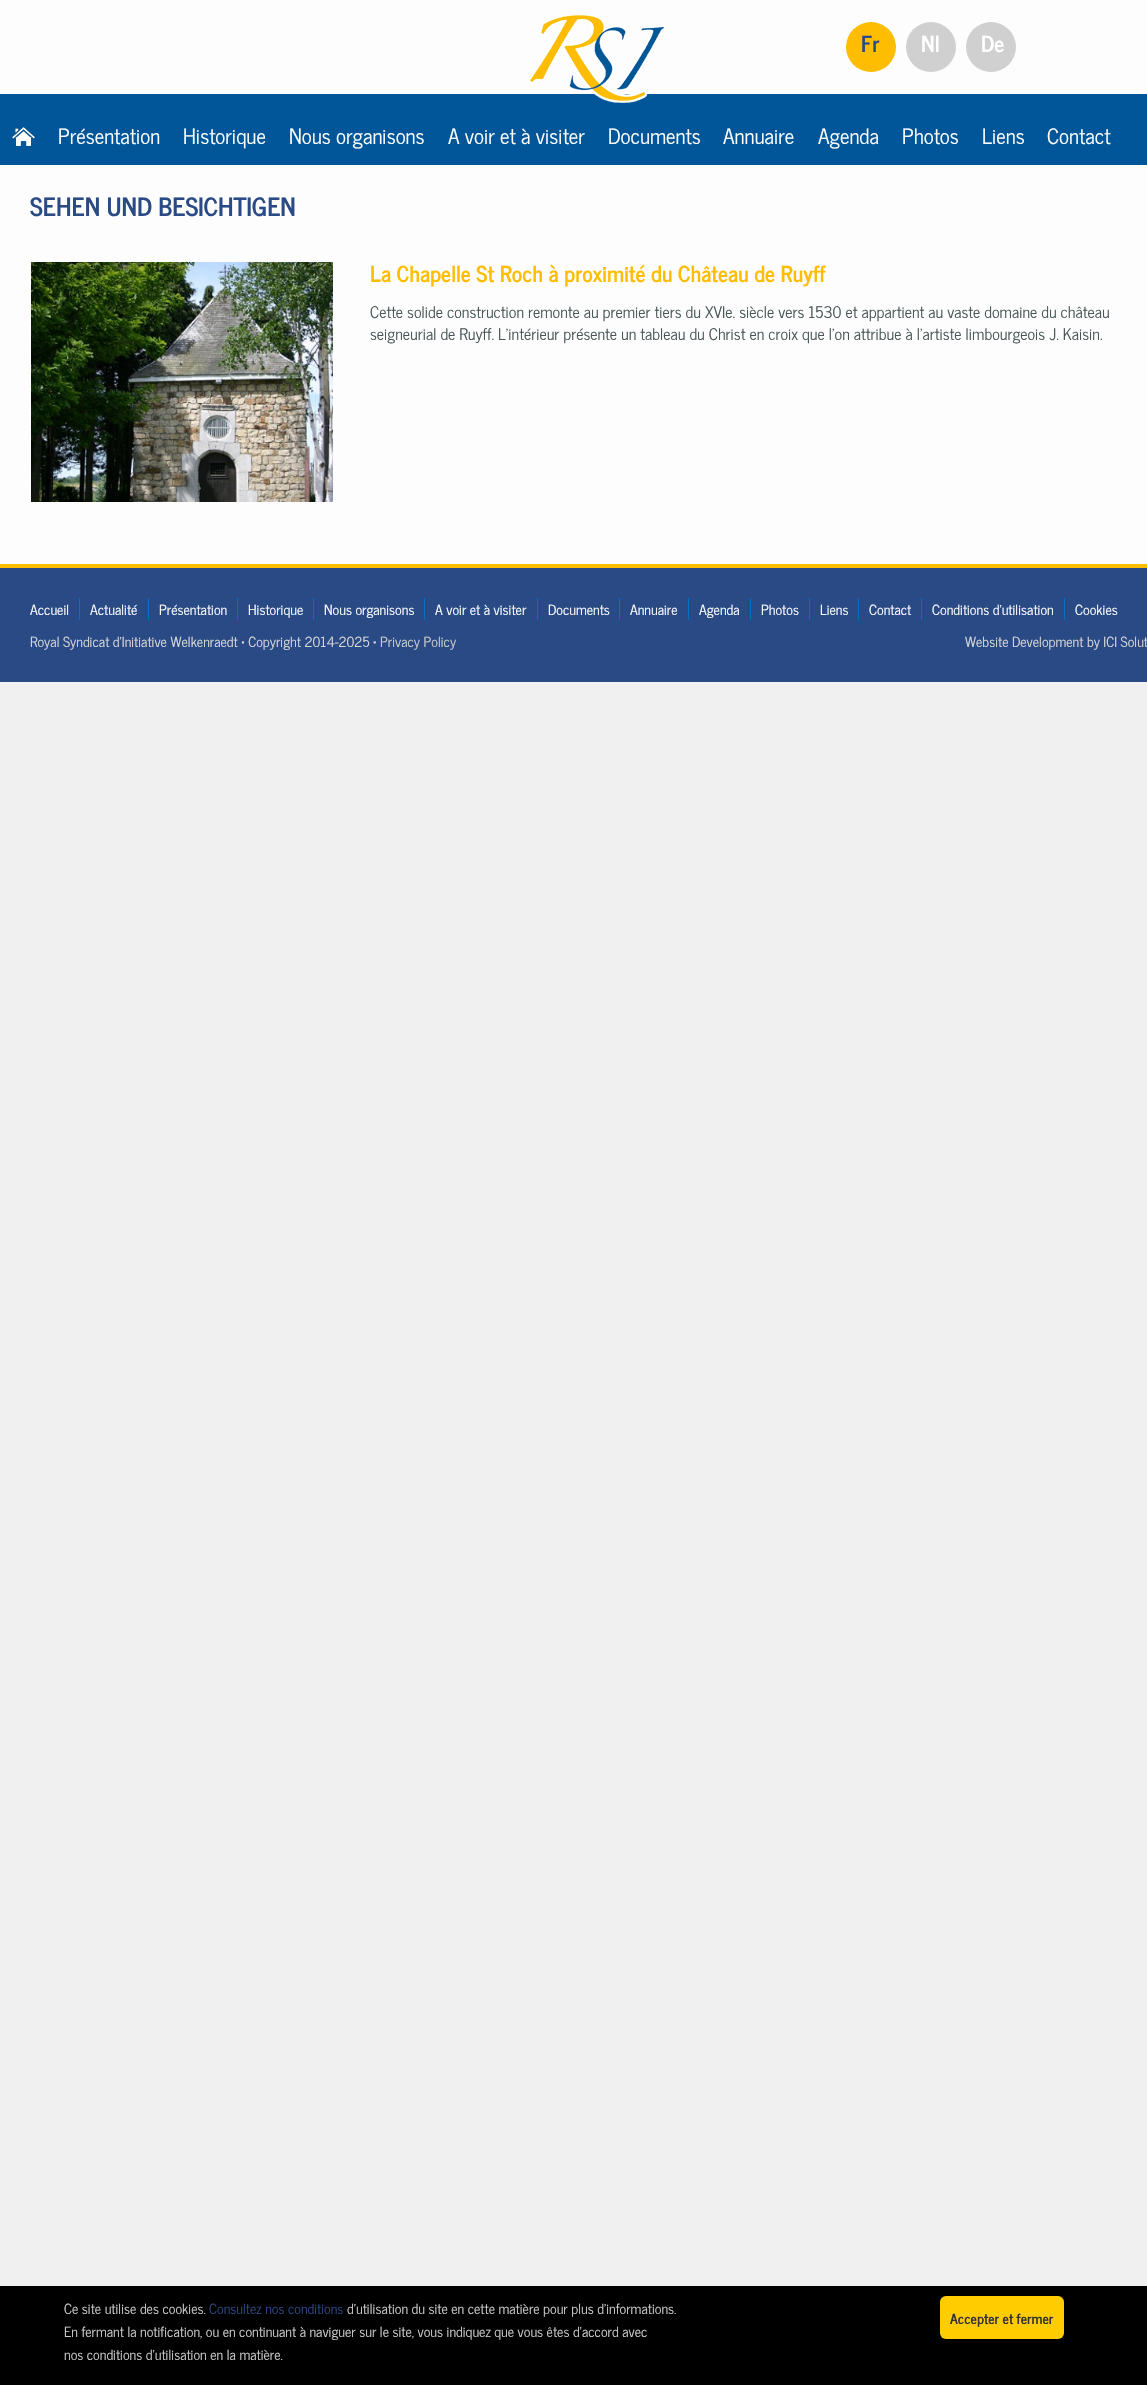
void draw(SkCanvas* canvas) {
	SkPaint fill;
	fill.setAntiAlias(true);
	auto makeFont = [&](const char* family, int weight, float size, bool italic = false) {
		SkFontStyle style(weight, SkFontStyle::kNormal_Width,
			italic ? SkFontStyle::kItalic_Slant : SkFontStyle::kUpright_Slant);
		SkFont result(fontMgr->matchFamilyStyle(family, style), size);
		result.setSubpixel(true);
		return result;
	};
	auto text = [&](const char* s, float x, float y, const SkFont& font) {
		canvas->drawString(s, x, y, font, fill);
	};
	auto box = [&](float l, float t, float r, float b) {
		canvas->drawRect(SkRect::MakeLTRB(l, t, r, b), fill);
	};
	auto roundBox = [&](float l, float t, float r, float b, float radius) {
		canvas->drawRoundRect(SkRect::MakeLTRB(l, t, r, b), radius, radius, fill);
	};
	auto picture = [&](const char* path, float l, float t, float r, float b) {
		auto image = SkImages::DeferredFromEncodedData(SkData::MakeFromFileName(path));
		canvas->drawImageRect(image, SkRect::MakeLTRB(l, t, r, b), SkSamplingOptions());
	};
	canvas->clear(0xFFF0F0F0);
	fill.setColor(0xFFFDFDFD);
	box(0, 0, 1147, 564);
	fill.setColor(0xFF005698);
	box(0, 94, 1147, 165);
	picture("image0.png", 530, 15, 664, 103);
	fill.setColor(0xFFFEBD01);
	canvas->drawCircle(871, 47, 25, fill);
	fill.setColor(0xFFD0D0D0);
	canvas->drawCircle(931, 47, 25, fill);
	canvas->drawCircle(991, 47, 25, fill);
	picture("image1.png", 12, 127, 35, 146);
	picture("image2.png", 31, 262, 333, 502);
	fill.setColor(0xFF2A4A85);
	box(0, 568, 1147, 682);
	fill.setColor(0xFFFEBD01);
	box(0, 564, 1147, 568);
	fill.setColor(0xFF0072C6);
	box(79, 598, 80, 620);
	box(148, 598, 149, 620);
	box(237, 598, 238, 620);
	box(313, 598, 314, 620);
	box(424, 598, 425, 620);
	box(537, 598, 538, 620);
	box(619, 598, 620, 620);
	box(688, 598, 689, 620);
	box(750, 598, 751, 620);
	box(809, 598, 810, 620);
	box(858, 598, 859, 620);
	box(921, 598, 922, 620);
	box(1064, 598, 1065, 620);
	fill.setColor(0xFF000000);
	box(0, 2286, 1147, 2385);
	fill.setColor(0xFFFFCC00);
	roundBox(940, 2296, 1064, 2339, 6);
	auto font1 = makeFont("News Cycle", 700, 22);
	fill.setColor(0xFF2A4A85);
	text("Fr", 861, 52, font1);
	fill.setColor(0xFFFFFFFF);
	text("Nl", 921, 52, font1);
	text("De", 981, 52, font1);
	auto font2 = makeFont("News Cycle", 400, 21);
	text("Présentation", 58, 144, font2);
	text("Historique", 183, 144, font2);
	text("Nous organisons", 289, 144, font2);
	text("A voir et à visiter", 448, 144, font2);
	text("Documents", 608, 144, font2);
	text("Annuaire", 723, 144, font2);
	text("Agenda", 818, 144, font2);
	text("Photos", 902, 144, font2);
	text("Liens", 982, 144, font2);
	text("Contact", 1047, 144, font2);
	auto font3 = makeFont("News Cycle", 700, 25);
	fill.setColor(0xFF2A4A85);
	text("SEHEN UND BESICHTIGEN", 30, 216, font3);
	fill.setColor(0xFFFEBD01);
	text("La Chapelle St Roch à proximité du Château de Ruyff", 370, 282, font1);
	auto font4 = makeFont("News Cycle", 400, 16);
	fill.setColor(0xFF485657);
	text("Cette solide construction remonte au premier tiers du XVIe. siècle vers 1530 et appartient au vaste domaine du château", 370, 318, font4);
	text("seigneurial de Ruyff. L'intérieur présente un tableau du Christ en croix que l'on attribue à l'artiste limbourgeois J. Kaisin.", 370, 340, font4);
	auto font5 = makeFont("News Cycle", 400, 14);
	fill.setColor(0xFFFFFFFF);
	text("Accueil", 30, 615, font5);
	text("Actualité", 90, 615, font5);
	text("Présentation", 159, 615, font5);
	text("Historique", 248, 615, font5);
	text("Nous organisons", 324, 615, font5);
	text("A voir et à visiter", 435, 615, font5);
	text("Documents", 548, 615, font5);
	text("Annuaire", 630, 615, font5);
	text("Agenda", 699, 615, font5);
	text("Photos", 761, 615, font5);
	text("Liens", 820, 615, font5);
	text("Contact", 869, 615, font5);
	text("Conditions d'utilisation", 932, 615, font5);
	text("Cookies", 1075, 615, font5);
	fill.setColor(0xFFDADADA);
	text("Royal Syndicat d'Initiative Welkenraedt • Copyright 2014-2025 •", 30, 647, font5);
	fill.setColor(0xFFCECECE);
	text("Privacy Policy", 380, 647, font5);
	fill.setColor(0xFFDADADA);
	text("Website Development by ICI Solut", 965, 647, font5);
	fill.setColor(0xFFCECECE);
	text("Ce site utilise des cookies.", 64, 2314, font5);
	fill.setColor(0xFF2A4A85);
	text("Consultez nos conditions", 209, 2314, font5);
	fill.setColor(0xFFCECECE);
	text("d'utilisation du site en cette matière pour plus d’informations.", 347, 2314, font5);
	text("En fermant la notification, ou en continuant à naviguer sur le site, vous indiquez que vous êtes d’accord avec", 64, 2337, font5);
	text("nos conditions d'utilisation en la matière.", 64, 2360, font5);
	auto font6 = makeFont("News Cycle", 700, 14);
	fill.setColor(0xFF333333);
	text("Accepter et fermer", 950, 2324, font6);
}
